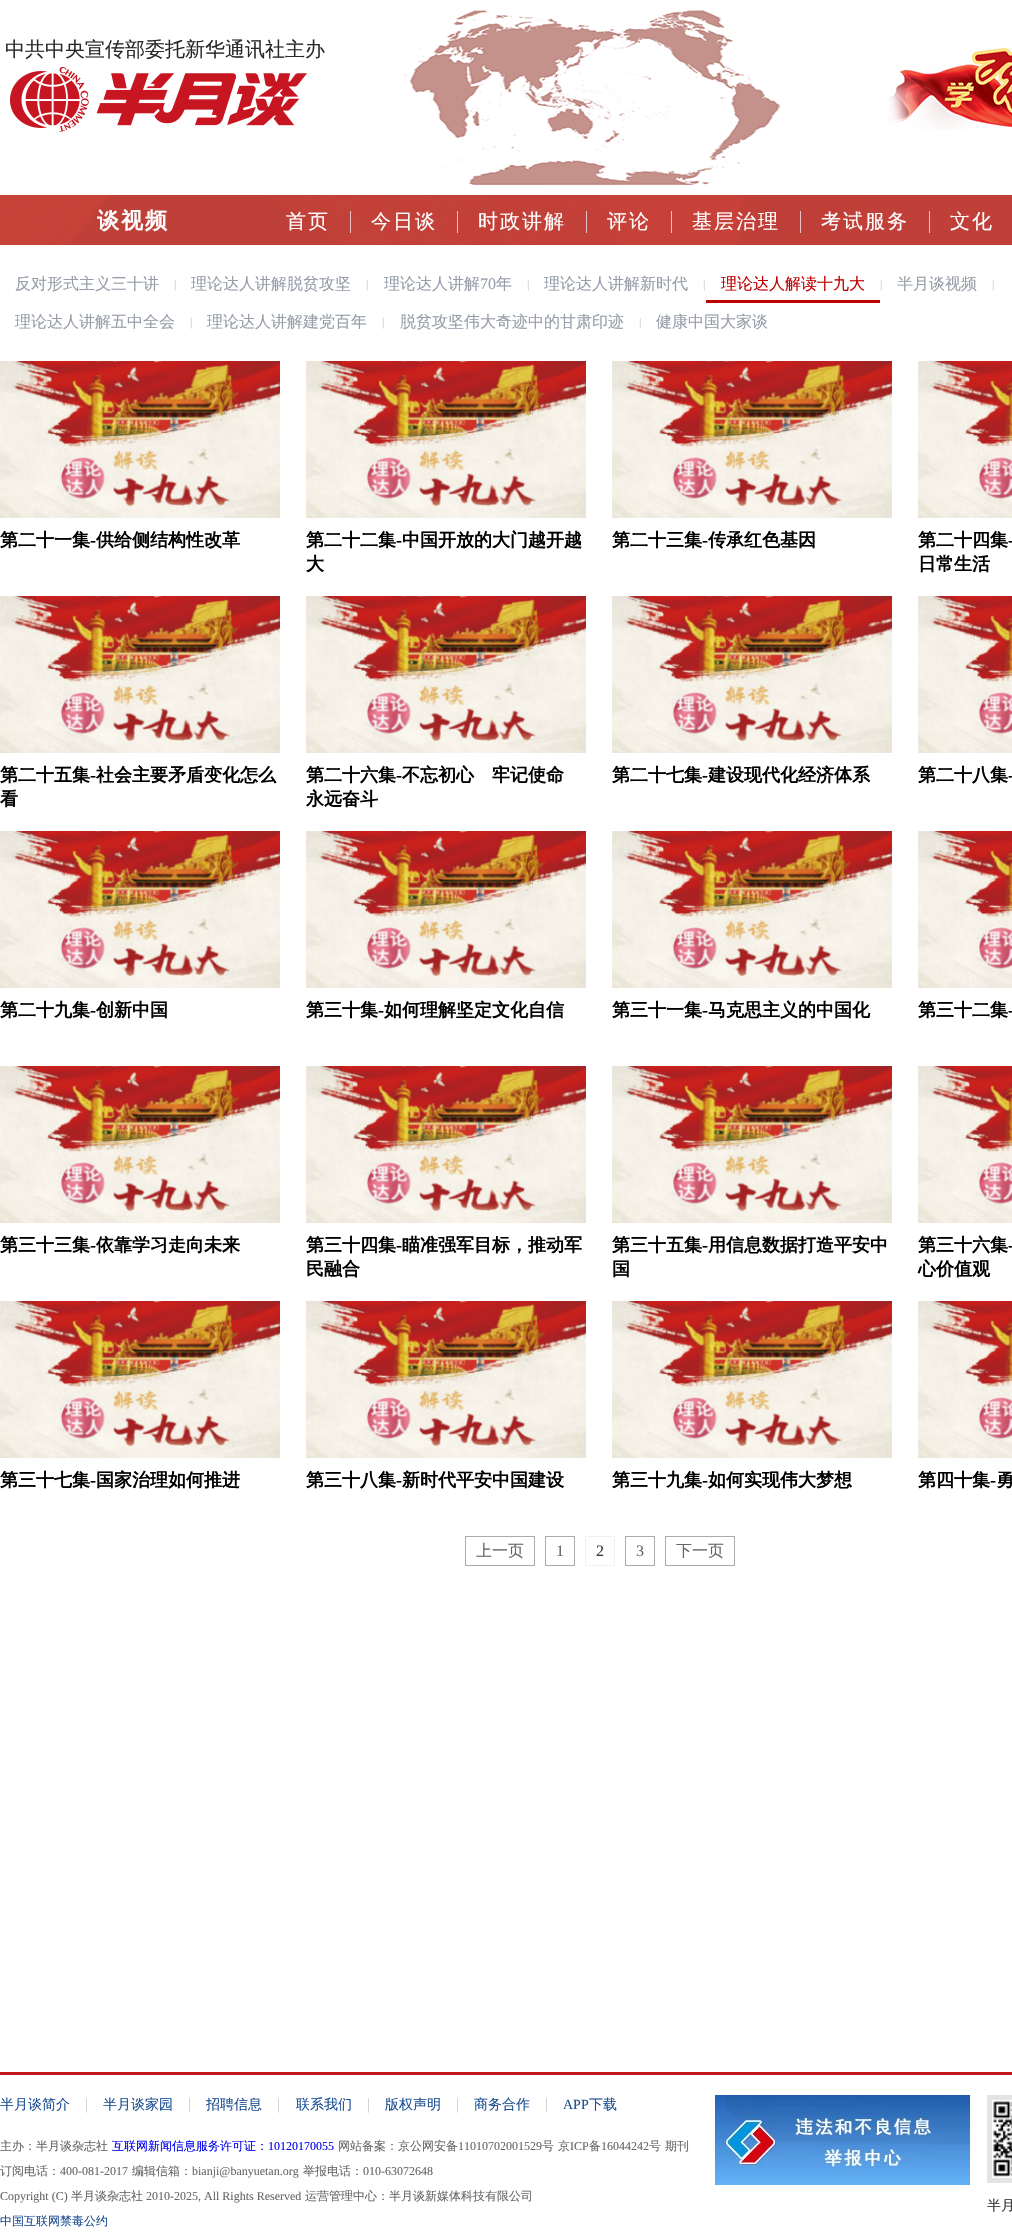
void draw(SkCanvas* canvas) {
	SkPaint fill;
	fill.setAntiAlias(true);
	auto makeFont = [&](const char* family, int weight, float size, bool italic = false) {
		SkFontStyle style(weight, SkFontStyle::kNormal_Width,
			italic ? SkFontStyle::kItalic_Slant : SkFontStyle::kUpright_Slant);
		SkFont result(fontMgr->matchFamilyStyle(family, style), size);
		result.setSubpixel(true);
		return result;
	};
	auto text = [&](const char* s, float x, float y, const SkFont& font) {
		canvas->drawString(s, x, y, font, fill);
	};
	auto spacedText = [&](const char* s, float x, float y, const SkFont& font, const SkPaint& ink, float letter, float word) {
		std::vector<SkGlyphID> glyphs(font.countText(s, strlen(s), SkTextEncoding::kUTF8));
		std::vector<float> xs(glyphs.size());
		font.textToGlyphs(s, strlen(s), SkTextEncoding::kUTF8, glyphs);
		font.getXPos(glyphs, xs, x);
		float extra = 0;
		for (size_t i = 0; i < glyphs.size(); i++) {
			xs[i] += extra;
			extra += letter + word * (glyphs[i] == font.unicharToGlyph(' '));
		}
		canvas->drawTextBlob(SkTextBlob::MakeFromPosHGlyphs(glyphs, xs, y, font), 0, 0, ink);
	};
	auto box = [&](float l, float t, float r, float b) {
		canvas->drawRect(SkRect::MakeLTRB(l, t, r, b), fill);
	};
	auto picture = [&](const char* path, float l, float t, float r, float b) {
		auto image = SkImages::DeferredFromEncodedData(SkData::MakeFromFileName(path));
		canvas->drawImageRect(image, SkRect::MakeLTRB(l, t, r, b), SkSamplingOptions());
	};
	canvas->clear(0xFFFFFFFF);
	picture("image0.png", 10, 67, 307, 132);
	picture("image1.png", 395, 10, 780, 185);
	picture("image2.png", 888, 48, 1012, 130);
	picture("image3.png", 0, 195, 1012, 245);
	fill.setColor(0xFFECC3C4);
	box(350, 211, 351, 233);
	box(457, 211, 458, 233);
	box(586, 211, 587, 233);
	box(671, 211, 672, 233);
	box(800, 211, 801, 233);
	box(929, 211, 930, 233);
	fill.setColor(0xFFBF0000);
	box(706, 300, 880, 303);
	picture("image4.png", 0, 361, 280, 518);
	picture("image4.png", 306, 361, 586, 518);
	picture("image5.png", 612, 361, 892, 518);
	picture("image6.png", 918, 361, 1012, 518);
	picture("image7.png", 0, 596, 280, 753);
	picture("image7.png", 306, 596, 586, 753);
	picture("image8.png", 612, 596, 892, 753);
	picture("image9.png", 918, 596, 1012, 753);
	picture("image7.png", 0, 831, 280, 988);
	picture("image7.png", 306, 831, 586, 988);
	picture("image8.png", 612, 831, 892, 988);
	picture("image9.png", 918, 831, 1012, 988);
	picture("image7.png", 0, 1066, 280, 1223);
	picture("image7.png", 306, 1066, 586, 1223);
	picture("image8.png", 612, 1066, 892, 1223);
	picture("image9.png", 918, 1066, 1012, 1223);
	picture("image7.png", 0, 1301, 280, 1458);
	picture("image7.png", 306, 1301, 586, 1458);
	picture("image8.png", 612, 1301, 892, 1458);
	picture("image9.png", 918, 1301, 1012, 1458);
	fill.setStyle(SkPaint::kStroke_Style);
	fill.setStrokeWidth(1);
	fill.setColor(0xFFAAAAAA);
	canvas->drawRect(SkRect::MakeLTRB(465.5f, 1536.5f, 534.5f, 1565.5f), fill);
	canvas->drawRect(SkRect::MakeLTRB(545.5f, 1536.5f, 574.5f, 1565.5f), fill);
	fill.setColor(0xFFF1F1F1);
	canvas->drawRect(SkRect::MakeLTRB(585.5f, 1536.5f, 614.5f, 1565.5f), fill);
	fill.setColor(0xFFAAAAAA);
	canvas->drawRect(SkRect::MakeLTRB(625.5f, 1536.5f, 654.5f, 1565.5f), fill);
	canvas->drawRect(SkRect::MakeLTRB(665.5f, 1536.5f, 734.5f, 1565.5f), fill);
	fill.setStyle(SkPaint::kFill_Style);
	fill.setColor(0xFFC4161D);
	box(0, 2072, 1012, 2075);
	picture("image10.png", 715, 2095, 970, 2185);
	fill.setStyle(SkPaint::kStroke_Style);
	fill.setStrokeWidth(5);
	fill.setColor(0xFFE4E4E4);
	canvas->drawRect(SkRect::MakeLTRB(989.5f, 2097.5f, 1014.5f, 2180.5f), fill);
	picture("image11.png", 993, 2101, 1012, 2177);
	auto font1 = makeFont("WenQuanYi Zen Hei", 500, 20);
	fill.setStyle(SkPaint::kFill_Style);
	fill.setColor(0xFF282828);
	text("中共中央宣传部委托新华通讯社主办", 5, 56, font1);
	auto font2 = makeFont("WenQuanYi Zen Hei", 700, 22);
	fill.setColor(0xFFFFFFFF);
	spacedText("谈视频", 97, 228, font2, fill, 2, 0);
	spacedText("首页", 286, 228, font1, fill, 2, 0);
	spacedText("今日谈", 371, 228, font1, fill, 2, 0);
	spacedText("时政讲解", 478, 228, font1, fill, 2, 0);
	spacedText("评论", 607, 228, font1, fill, 2, 0);
	spacedText("基层治理", 692, 228, font1, fill, 2, 0);
	spacedText("考试服务", 821, 228, font1, fill, 2, 0);
	spacedText("文化", 950, 228, font1, fill, 2, 0);
	auto font3 = makeFont("WenQuanYi Zen Hei", 500, 16);
	fill.setColor(0xFF969DA8);
	text("反对形式主义三十讲", 15, 289, font3);
	auto font4 = makeFont("Liberation Serif", 400, 12);
	fill.setColor(0xFFCACFD9);
	text("|", 174, 288, font4);
	fill.setColor(0xFF969DA8);
	text("理论达人讲解脱贫攻坚", 191, 289, font3);
	fill.setColor(0xFFCACFD9);
	text("|", 366, 288, font4);
	fill.setColor(0xFF969DA8);
	text("理论达人讲解", 384, 289, font3);
	auto font5 = makeFont("Liberation Serif", 400, 16);
	text("70", 480, 289, font5);
	text("年", 496, 289, font3);
	fill.setColor(0xFFCACFD9);
	text("|", 527, 288, font4);
	fill.setColor(0xFF969DA8);
	text("理论达人讲解新时代", 544, 289, font3);
	fill.setColor(0xFFCACFD9);
	text("|", 703, 288, font4);
	fill.setColor(0xFFBF0000);
	text("理论达人解读十九大", 721, 289, font3);
	fill.setColor(0xFFCACFD9);
	text("|", 880, 288, font4);
	fill.setColor(0xFF969DA8);
	text("半月谈视频", 897, 289, font3);
	fill.setColor(0xFFCACFD9);
	text("|", 992, 288, font4);
	fill.setColor(0xFF969DA8);
	text("理论达人讲解五中全会", 15, 327, font3);
	fill.setColor(0xFFCACFD9);
	text("|", 190, 326, font4);
	fill.setColor(0xFF969DA8);
	text("理论达人讲解建党百年", 207, 327, font3);
	fill.setColor(0xFFCACFD9);
	text("|", 382, 326, font4);
	fill.setColor(0xFF969DA8);
	text("脱贫攻坚伟大奇迹中的甘肃印迹", 400, 327, font3);
	fill.setColor(0xFFCACFD9);
	text("|", 639, 326, font4);
	fill.setColor(0xFF969DA8);
	text("健康中国大家谈", 656, 327, font3);
	auto font6 = makeFont("WenQuanYi Zen Hei", 700, 18);
	fill.setColor(0xFF000000);
	text("第二十一集", 0, 546, font6);
	auto font7 = makeFont("Liberation Serif", 700, 18);
	text("-", 90, 546, font7);
	text("供给侧结构性改革", 96, 546, font6);
	text("第二十二集", 306, 546, font6);
	text("-", 396, 546, font7);
	text("中国开放的大门越开越", 402, 546, font6);
	text("大", 306, 570, font6);
	text("第二十三集", 612, 546, font6);
	text("-", 702, 546, font7);
	text("传承红色基因", 708, 546, font6);
	text("第二十四集", 918, 546, font6);
	text("-", 1008, 546, font7);
	text("日常生活", 918, 570, font6);
	text("第二十五集", 0, 781, font6);
	text("-", 90, 781, font7);
	text("社会主要矛盾变化怎么", 96, 781, font6);
	text("看", 0, 805, font6);
	text("第二十六集", 306, 781, font6);
	text("-", 396, 781, font7);
	text("不忘初心　牢记使命", 402, 781, font6);
	text("永远奋斗", 306, 805, font6);
	text("第二十七集", 612, 781, font6);
	text("-", 702, 781, font7);
	text("建设现代化经济体系", 708, 781, font6);
	text("第二十八集", 918, 781, font6);
	text("-", 1008, 781, font7);
	text("第二十九集", 0, 1016, font6);
	text("-", 90, 1016, font7);
	text("创新中国", 96, 1016, font6);
	text("第三十集", 306, 1016, font6);
	text("-", 378, 1016, font7);
	text("如何理解坚定文化自信", 384, 1016, font6);
	text("第三十一集", 612, 1016, font6);
	text("-", 702, 1016, font7);
	text("马克思主义的中国化", 708, 1016, font6);
	text("第三十二集", 918, 1016, font6);
	text("-", 1008, 1016, font7);
	text("第三十三集", 0, 1251, font6);
	text("-", 90, 1251, font7);
	text("依靠学习走向未来", 96, 1251, font6);
	text("第三十四集", 306, 1251, font6);
	text("-", 396, 1251, font7);
	text("瞄准强军目标，推动军", 402, 1251, font6);
	text("民融合", 306, 1275, font6);
	text("第三十五集", 612, 1251, font6);
	text("-", 702, 1251, font7);
	text("用信息数据打造平安中", 708, 1251, font6);
	text("国", 612, 1275, font6);
	text("第三十六集", 918, 1251, font6);
	text("-", 1008, 1251, font7);
	text("心价值观", 918, 1275, font6);
	text("第三十七集", 0, 1486, font6);
	text("-", 90, 1486, font7);
	text("国家治理如何推进", 96, 1486, font6);
	text("第三十八集", 306, 1486, font6);
	text("-", 396, 1486, font7);
	text("新时代平安中国建设", 402, 1486, font6);
	text("第三十九集", 612, 1486, font6);
	text("-", 702, 1486, font7);
	text("如何实现伟大梦想", 708, 1486, font6);
	text("第四十集", 918, 1486, font6);
	text("-", 990, 1486, font7);
	text("勇", 996, 1486, font6);
	fill.setColor(0xFF666666);
	text("上一页", 476, 1556, font3);
	text("1", 556, 1556, font5);
	fill.setColor(0xFF333333);
	text("2", 596, 1556, font5);
	fill.setColor(0xFF666666);
	text("3", 636, 1556, font5);
	text("下一页", 676, 1556, font3);
	auto font8 = makeFont("WenQuanYi Zen Hei", 500, 14);
	fill.setColor(0xFF1B4E92);
	text("半月谈简介", 0, 2109, font8);
	fill.setColor(0xFFCCCCCC);
	text("|", 85, 2109, font5);
	fill.setColor(0xFF1B4E92);
	text("半月谈家园", 103, 2109, font8);
	fill.setColor(0xFFCCCCCC);
	text("|", 188, 2109, font5);
	fill.setColor(0xFF1B4E92);
	text("招聘信息", 206, 2109, font8);
	fill.setColor(0xFFCCCCCC);
	text("|", 277, 2109, font5);
	fill.setColor(0xFF1B4E92);
	text("联系我们", 296, 2109, font8);
	fill.setColor(0xFFCCCCCC);
	text("|", 367, 2109, font5);
	fill.setColor(0xFF1B4E92);
	text("版权声明", 385, 2109, font8);
	fill.setColor(0xFFCCCCCC);
	text("|", 456, 2109, font5);
	fill.setColor(0xFF1B4E92);
	text("商务合作", 474, 2109, font8);
	fill.setColor(0xFFCCCCCC);
	text("|", 545, 2109, font5);
	auto font9 = makeFont("Liberation Serif", 400, 14);
	fill.setColor(0xFF1B4E92);
	text("APP", 563, 2109, font9);
	text("下载", 589, 2109, font8);
	auto font10 = makeFont("WenQuanYi Zen Hei", 500, 12);
	fill.setColor(0xFF666666);
	text("主办：半月谈杂志社", 0, 2150, font10);
	fill.setColor(0xFF0000EE);
	text("互联网新闻信息服务许可证：", 112, 2150, font10);
	text("10120170055", 268, 2150, font4);
	fill.setColor(0xFF666666);
	text("网站备案：京公网安备", 338, 2150, font10);
	text("11010702001529", 458, 2150, font4);
	text("号", 542, 2150, font10);
	text("京", 558, 2150, font10);
	text("ICP", 570, 2150, font4);
	text("备", 589, 2150, font10);
	text("16044242", 601, 2150, font4);
	text("号", 649, 2150, font10);
	text("期刊", 665, 2150, font10);
	text("订阅电话：", 0, 2175, font10);
	text("400-081-2017", 60, 2175, font4);
	text("编辑信箱：", 132, 2175, font10);
	text("bianji@banyuetan.org", 192, 2175, font4);
	text("举报电话：", 303, 2175, font10);
	text("010-63072648", 363, 2175, font4);
	text("Copyright (C)", 0, 2200, font4);
	text("半月谈杂志社", 71, 2200, font10);
	text("2010-2025, All Rights Reserved", 146, 2200, font4);
	text("运营管理中心：半月谈新媒体科技有限公司", 305, 2200, font10);
	fill.setColor(0xFF1B4E92);
	text("中国互联网禁毒公约", 0, 2225, font10);
	fill.setColor(0xFF333333);
	text("半月", 987, 2210, font8);
}
